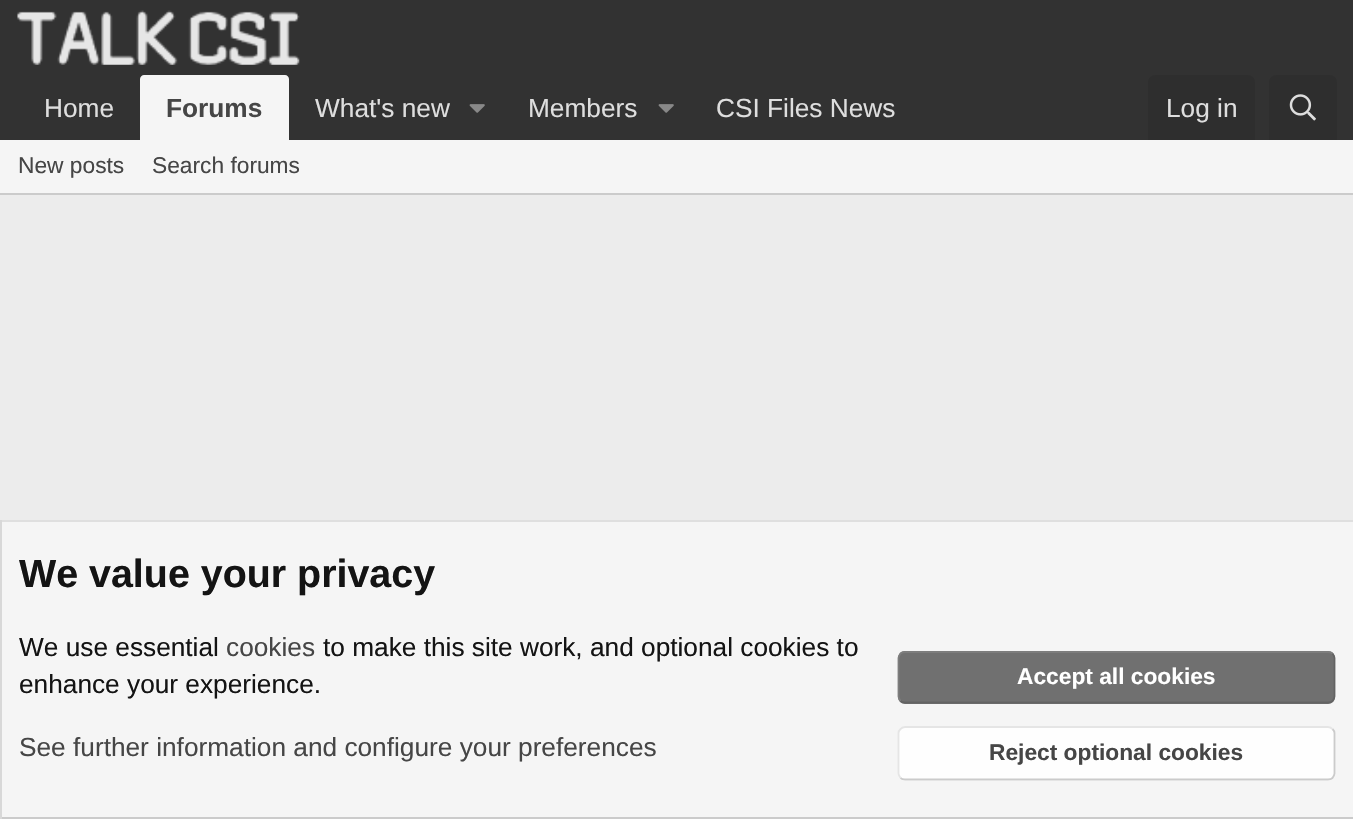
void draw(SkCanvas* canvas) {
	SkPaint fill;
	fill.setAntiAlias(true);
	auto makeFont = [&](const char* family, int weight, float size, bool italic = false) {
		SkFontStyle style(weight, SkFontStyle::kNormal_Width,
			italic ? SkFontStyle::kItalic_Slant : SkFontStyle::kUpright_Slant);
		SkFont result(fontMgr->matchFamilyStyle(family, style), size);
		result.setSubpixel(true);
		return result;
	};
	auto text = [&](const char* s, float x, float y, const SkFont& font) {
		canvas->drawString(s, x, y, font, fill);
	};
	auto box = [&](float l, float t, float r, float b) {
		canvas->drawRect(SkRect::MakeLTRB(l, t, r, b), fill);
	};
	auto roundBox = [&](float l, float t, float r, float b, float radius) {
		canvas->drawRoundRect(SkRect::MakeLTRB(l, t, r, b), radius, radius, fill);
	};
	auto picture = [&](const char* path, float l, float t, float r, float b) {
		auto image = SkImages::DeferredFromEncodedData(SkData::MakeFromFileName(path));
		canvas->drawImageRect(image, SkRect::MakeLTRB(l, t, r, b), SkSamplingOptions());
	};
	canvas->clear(0xFFECECEC);
	fill.setColor(0xFF323232);
	box(0, 0, 1353, 140);
	picture("image0.png", 17, 10, 300, 65);
	fill.setColor(0xFFF5F5F5);
	canvas->drawPath(SkPathBuilder().moveTo(144, 75).lineTo(285, 75).cubicTo(287, 75, 289, 77, 289, 79).lineTo(289, 140).lineTo(140, 140).lineTo(140, 79).cubicTo(140, 77, 142, 75, 144, 75).close().detach(), fill);
	picture("image1.png", 469, 104, 485, 113);
	picture("image1.png", 658, 104, 674, 113);
	fill.setColor(0xFF2E2E2E);
	canvas->drawPath(SkPathBuilder().moveTo(1155, 75).lineTo(1248, 75).cubicTo(1252, 75, 1255, 78, 1255, 82).lineTo(1255, 140).lineTo(1148, 140).lineTo(1148, 82).cubicTo(1148, 78, 1151, 75, 1155, 75).close().detach(), fill);
	canvas->drawPath(SkPathBuilder().moveTo(1276, 75).lineTo(1330, 75).cubicTo(1334, 75, 1337, 78, 1337, 82).lineTo(1337, 140).lineTo(1269, 140).lineTo(1269, 82).cubicTo(1269, 78, 1272, 75, 1276, 75).close().detach(), fill);
	picture("image2.png", 1289, 94, 1316, 121);
	fill.setColor(0xFFF5F5F5);
	box(0, 140, 1353, 193);
	fill.setColor(0xFFCBCBCB);
	box(0, 193, 1353, 195);
	fill.setColor(0xFFF5F5F5);
	box(2, 522, 1353, 817);
	fill.setColor(0xFFDFDFDF);
	box(0, 520, 1353, 522);
	fill.setColor(0xFFCBCBCB);
	box(0, 817, 1353, 819);
	fill.setColor(0xFFD8D8D8);
	box(0, 520, 2, 819);
	fill.setColor(0xFF707070);
	roundBox(898, 651, 1335, 704, 7);
	fill.setStyle(SkPaint::kStroke_Style);
	fill.setStrokeWidth(1.8f);
	fill.setColor(0xFF636363);
	canvas->drawPath(SkPathBuilder().moveTo(1332.5f, 653.5f).cubicTo(1333.5f, 655, 1334.5f, 656.5f, 1334.5f, 658).lineTo(1334.5f, 696.5f).cubicTo(1334.5f, 698, 1333.5f, 699.5f, 1332.5f, 701).cubicTo(1331.5f, 702, 1330, 702.5f, 1328, 702.5f).lineTo(905, 702.5f).cubicTo(903, 702.5f, 901.5f, 702, 900.5f, 701).detach(), fill);
	fill.setColor(0xFF7D7D7D);
	canvas->drawPath(SkPathBuilder().moveTo(900.5f, 701).cubicTo(899.5f, 699.5f, 898.5f, 698, 898.5f, 696.5f).lineTo(898.5f, 658).cubicTo(898.5f, 656.5f, 899.5f, 655, 900.5f, 653.5f).cubicTo(901.5f, 652.5f, 903, 652, 905, 652).lineTo(1328, 652).cubicTo(1330, 652, 1331.5f, 652.5f, 1332.5f, 653.5f).detach(), fill);
	fill.setStyle(SkPaint::kFill_Style);
	fill.setColor(0xFFFEFEFE);
	roundBox(898, 726, 1335, 781, 7);
	fill.setStyle(SkPaint::kStroke_Style);
	fill.setColor(0xFFCBCBCB);
	canvas->drawPath(SkPathBuilder().moveTo(1332.5f, 729).cubicTo(1333.5f, 730, 1334.5f, 731.5f, 1334.5f, 733).lineTo(1334.5f, 773.5f).cubicTo(1334.5f, 775, 1333.5f, 776.5f, 1332.5f, 778).cubicTo(1331.5f, 779, 1330, 779.5f, 1328, 779.5f).lineTo(905, 779.5f).cubicTo(903, 779.5f, 901.5f, 779, 900.5f, 778).detach(), fill);
	fill.setColor(0xFFE5E5E5);
	canvas->drawPath(SkPathBuilder().moveTo(900.5f, 778).cubicTo(899.5f, 776.5f, 898.5f, 775, 898.5f, 773.5f).lineTo(898.5f, 733).cubicTo(898.5f, 731.5f, 899.5f, 730, 900.5f, 729).cubicTo(901.5f, 728, 903, 727, 905, 727).lineTo(1328, 727).cubicTo(1330, 727, 1331.5f, 728, 1332.5f, 729).detach(), fill);
	auto font1 = makeFont("Liberation Sans", 400, 26.25f);
	fill.setStyle(SkPaint::kFill_Style);
	fill.setColor(0xFFDEDEDE);
	text("Home", 44, 117, font1);
	auto font2 = makeFont("Liberation Sans", 700, 26.25f);
	fill.setColor(0xFF464646);
	text("Forums", 166, 117, font2);
	fill.setColor(0xFFDEDEDE);
	text("What's new", 315, 117, font1);
	text("Members", 528, 117, font1);
	text("CSI Files News", 716, 117, font1);
	text("Log in", 1166, 117, font1);
	auto font3 = makeFont("Liberation Sans", 400, 22.75f);
	fill.setColor(0xFF464646);
	text("New posts", 18, 173, font3);
	text("Search forums", 152, 173, font3);
	auto font4 = makeFont("Liberation Sans", 700, 39.4f);
	fill.setColor(0xFF141414);
	text("We value your privacy", 19, 587, font4);
	text("We use essential", 19, 656, font1);
	fill.setColor(0xFF464646);
	text("cookies", 226, 656, font1);
	fill.setColor(0xFF141414);
	text("to make this site work, and optional cookies to", 323, 656, font1);
	text("enhance your experience.", 19, 693, font1);
	fill.setColor(0xFF464646);
	text("See further information and configure your preferences", 19, 756, font1);
	auto font5 = makeFont("Liberation Sans", 700, 22.75f);
	fill.setColor(0xFFFFFFFF);
	text("Accept all cookies", 1017, 684, font5);
	fill.setColor(0xFF464646);
	text("Reject optional cookies", 989, 760, font5);
}
